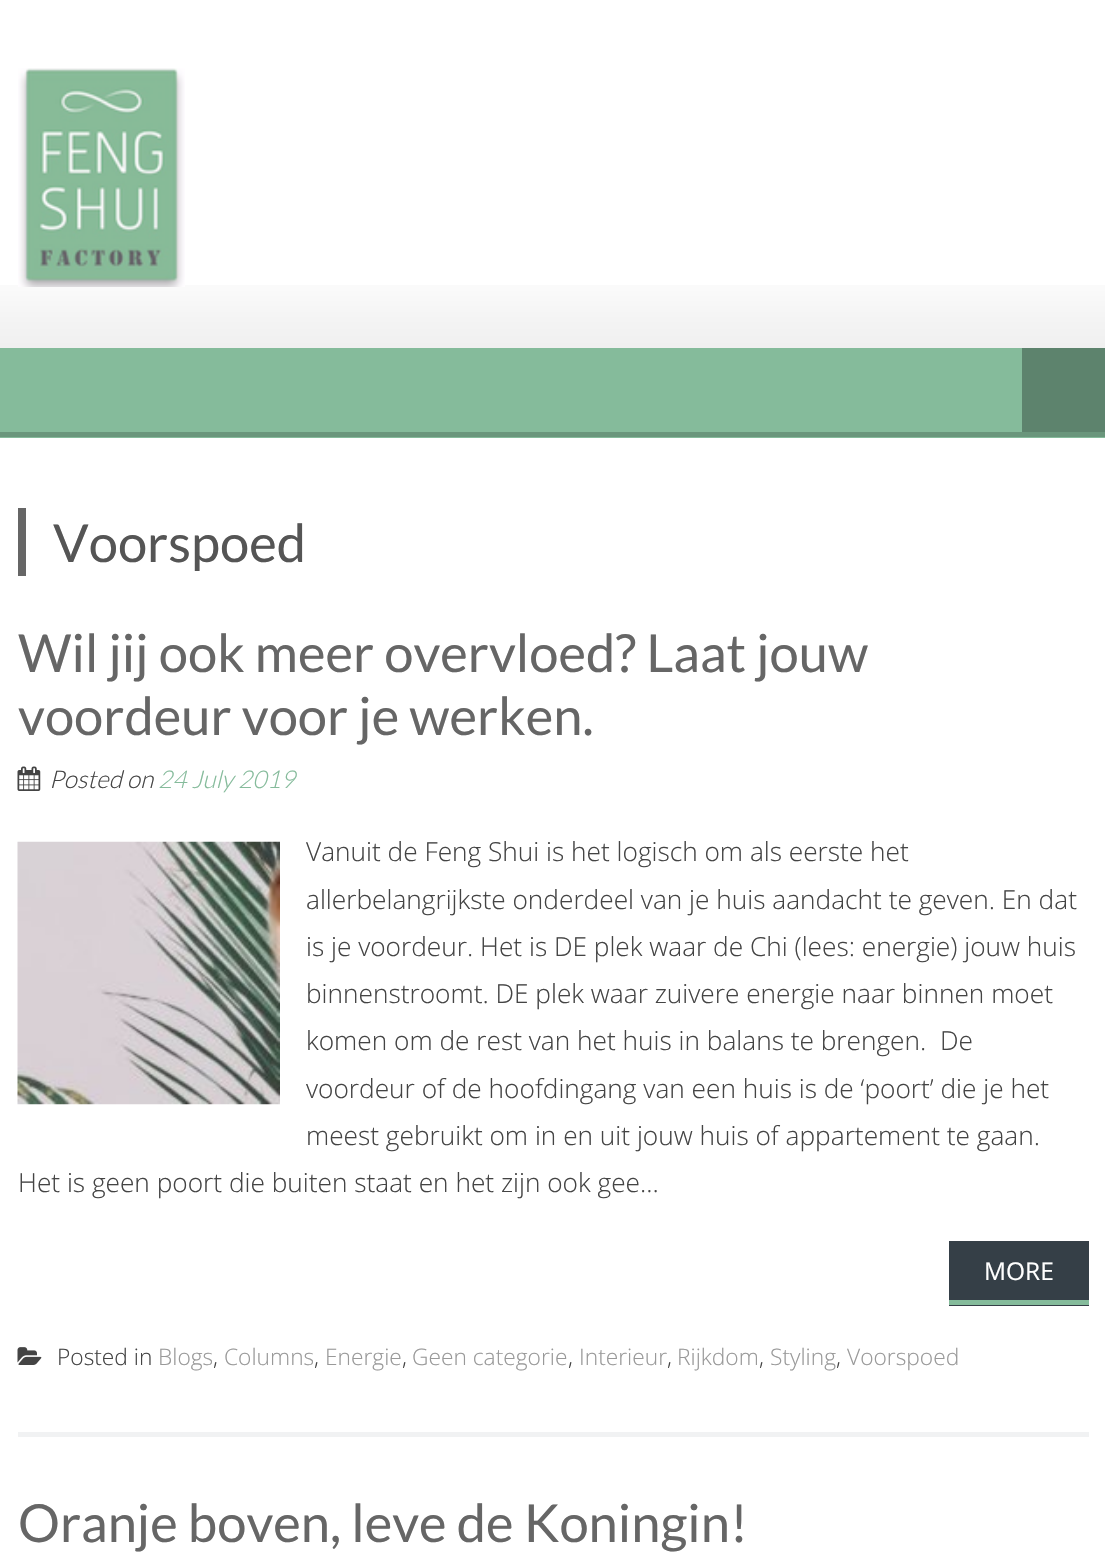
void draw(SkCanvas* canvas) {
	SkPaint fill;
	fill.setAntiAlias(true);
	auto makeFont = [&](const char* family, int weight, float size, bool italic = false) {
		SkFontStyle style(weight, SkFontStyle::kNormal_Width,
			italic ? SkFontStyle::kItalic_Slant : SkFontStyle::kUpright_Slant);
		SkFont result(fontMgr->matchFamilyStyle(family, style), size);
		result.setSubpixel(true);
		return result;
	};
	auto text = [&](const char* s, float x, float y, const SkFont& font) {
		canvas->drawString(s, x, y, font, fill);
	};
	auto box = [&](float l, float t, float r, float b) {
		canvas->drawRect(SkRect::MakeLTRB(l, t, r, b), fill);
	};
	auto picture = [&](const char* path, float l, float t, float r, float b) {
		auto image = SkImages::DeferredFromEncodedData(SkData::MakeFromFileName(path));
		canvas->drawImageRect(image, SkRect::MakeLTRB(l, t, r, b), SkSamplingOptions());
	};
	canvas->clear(0xFFFFFFFF);
	picture("image0.png", 0, 285, 1105, 348);
	picture("image1.png", 18, 68, 185, 287);
	fill.setColor(0xFF85BB9B);
	box(0, 348, 1105, 438);
	fill.setColor(0xFF6A967C);
	box(0, 432, 1105, 437);
	fill.setColor(0xFF5D836D);
	box(1022, 348, 1105, 432);
	fill.setColor(0xFF666666);
	box(18, 508, 26, 576);
	fill.setColor(0xFFF1F2F3);
	box(18, 1432, 1089, 1437);
	picture("image2.png", 17, 766, 41, 791);
	picture("image3.png", 17, 841, 280, 1105);
	fill.setColor(0xFF353F47);
	box(949, 1241, 1089, 1306);
	fill.setColor(0xFF85BB9B);
	box(949, 1300, 1089, 1305);
	picture("image4.png", 17, 1347, 42, 1365);
	auto font1 = makeFont("Lato", 400, 52.5f);
	fill.setColor(0xFF555555);
	text("Voorspoed", 53, 562, font1);
	fill.setColor(0xFF666666);
	text("Wil jij ook meer overvloed? Laat jouw", 18, 672, font1);
	text("voordeur voor je werken.", 18, 735, font1);
	auto font2 = makeFont("Lato", 300, 24.5f, true);
	fill.setColor(0xFF444444);
	text("Posted on", 49, 788, font2);
	fill.setColor(0xFF85BB9B);
	text("24 July 2019", 158, 788, font2);
	auto font3 = makeFont("Open Sans", 300, 26.25f);
	fill.setColor(0xFF444444);
	text("Vanuit de Feng Shui is het logisch om als eerste het", 306, 861, font3);
	text("allerbelangrijkste onderdeel van je huis aandacht te geven. En dat", 306, 909, font3);
	text("is je voordeur. Het is DE plek waar de Chi (lees: energie) jouw huis", 306, 956, font3);
	text("binnenstroomt. DE plek waar zuivere energie naar binnen moet", 306, 1003, font3);
	text("komen om de rest van het huis in balans te brengen.", 306, 1050, font3);
	text("De", 940, 1050, font3);
	text("voordeur of de hoofdingang van een huis is de ‘poort’ die je het", 306, 1098, font3);
	text("meest gebruikt om in en uit jouw huis of appartement te gaan.", 306, 1145, font3);
	text("Het is geen poort die buiten staat en het zijn ook gee...", 18, 1192, font3);
	auto font4 = makeFont("Open Sans", 400, 24.5f);
	fill.setColor(0xFFFFFFFF);
	text("MORE", 984, 1280, font4);
	auto font5 = makeFont("Open Sans", 300, 22.75f);
	fill.setColor(0xFF444444);
	text("Posted in", 57, 1365, font5);
	fill.setColor(0xFF999999);
	text("Blogs", 158, 1365, font5);
	fill.setColor(0xFF444444);
	text(",", 213, 1365, font5);
	fill.setColor(0xFF999999);
	text("Columns", 224, 1365, font5);
	fill.setColor(0xFF444444);
	text(",", 314, 1365, font5);
	fill.setColor(0xFF999999);
	text("Energie", 325, 1365, font5);
	fill.setColor(0xFF444444);
	text(",", 402, 1365, font5);
	fill.setColor(0xFF999999);
	text("Geen categorie", 412, 1365, font5);
	fill.setColor(0xFF444444);
	text(",", 568, 1365, font5);
	fill.setColor(0xFF999999);
	text("Interieur", 579, 1365, font5);
	fill.setColor(0xFF444444);
	text(",", 667, 1365, font5);
	fill.setColor(0xFF999999);
	text("Rijkdom", 677, 1365, font5);
	fill.setColor(0xFF444444);
	text(",", 759, 1365, font5);
	fill.setColor(0xFF999999);
	text("Styling", 770, 1365, font5);
	fill.setColor(0xFF444444);
	text(",", 836, 1365, font5);
	fill.setColor(0xFF999999);
	text("Voorspoed", 847, 1365, font5);
	fill.setColor(0xFF666666);
	text("Oranje boven, leve de Koningin!", 18, 1542, font1);
}
